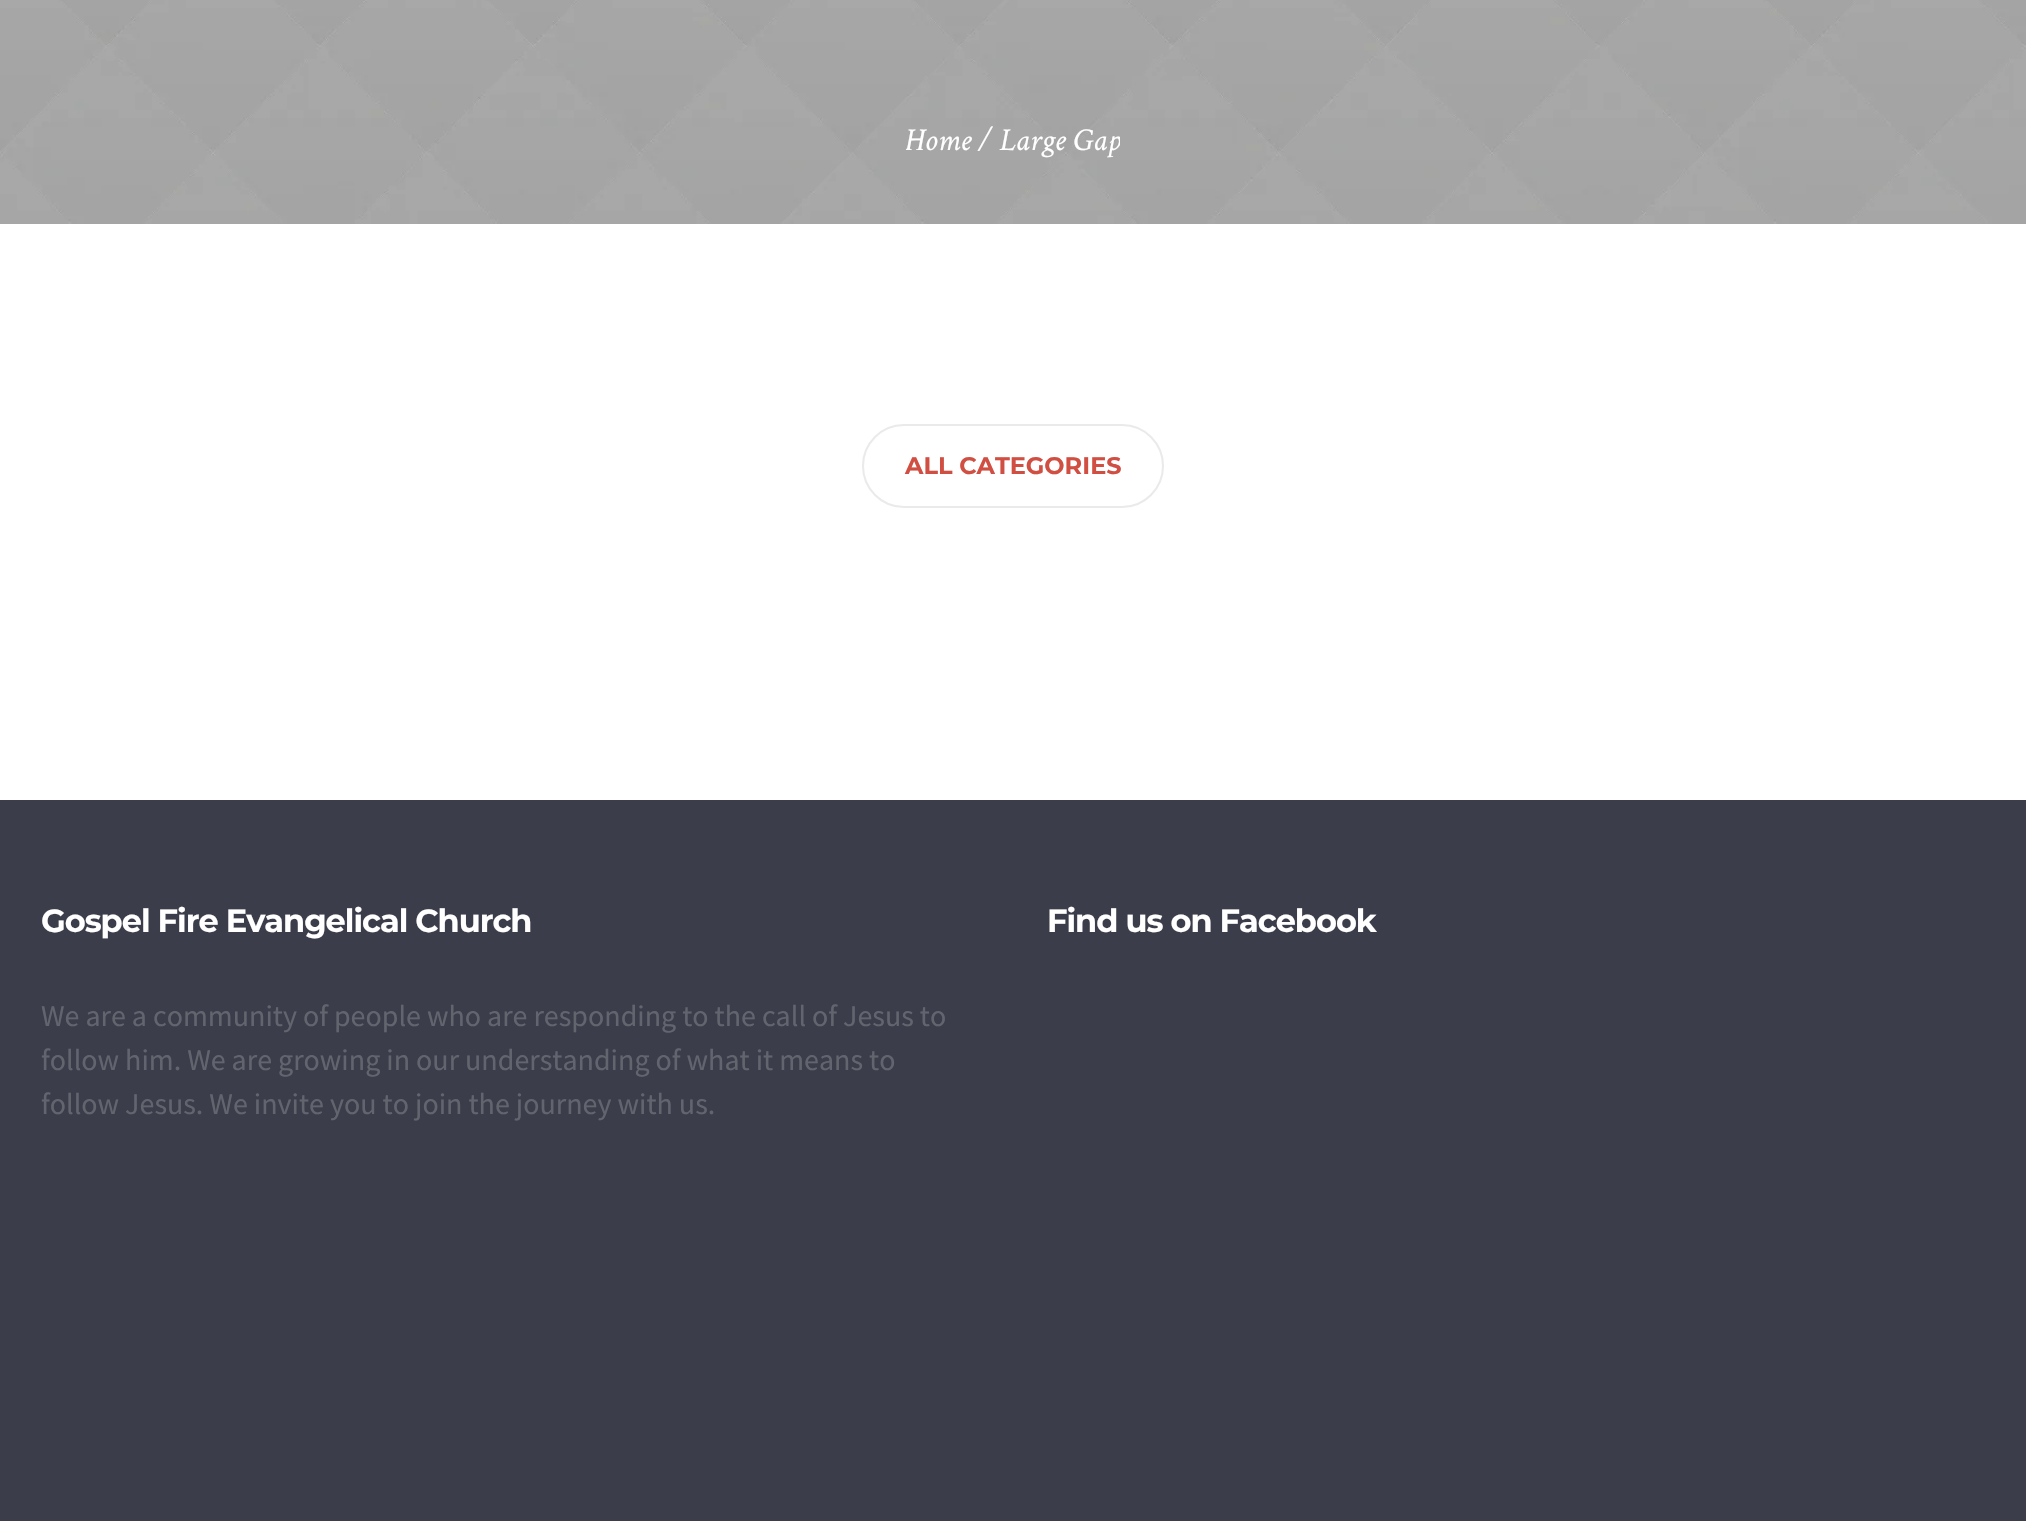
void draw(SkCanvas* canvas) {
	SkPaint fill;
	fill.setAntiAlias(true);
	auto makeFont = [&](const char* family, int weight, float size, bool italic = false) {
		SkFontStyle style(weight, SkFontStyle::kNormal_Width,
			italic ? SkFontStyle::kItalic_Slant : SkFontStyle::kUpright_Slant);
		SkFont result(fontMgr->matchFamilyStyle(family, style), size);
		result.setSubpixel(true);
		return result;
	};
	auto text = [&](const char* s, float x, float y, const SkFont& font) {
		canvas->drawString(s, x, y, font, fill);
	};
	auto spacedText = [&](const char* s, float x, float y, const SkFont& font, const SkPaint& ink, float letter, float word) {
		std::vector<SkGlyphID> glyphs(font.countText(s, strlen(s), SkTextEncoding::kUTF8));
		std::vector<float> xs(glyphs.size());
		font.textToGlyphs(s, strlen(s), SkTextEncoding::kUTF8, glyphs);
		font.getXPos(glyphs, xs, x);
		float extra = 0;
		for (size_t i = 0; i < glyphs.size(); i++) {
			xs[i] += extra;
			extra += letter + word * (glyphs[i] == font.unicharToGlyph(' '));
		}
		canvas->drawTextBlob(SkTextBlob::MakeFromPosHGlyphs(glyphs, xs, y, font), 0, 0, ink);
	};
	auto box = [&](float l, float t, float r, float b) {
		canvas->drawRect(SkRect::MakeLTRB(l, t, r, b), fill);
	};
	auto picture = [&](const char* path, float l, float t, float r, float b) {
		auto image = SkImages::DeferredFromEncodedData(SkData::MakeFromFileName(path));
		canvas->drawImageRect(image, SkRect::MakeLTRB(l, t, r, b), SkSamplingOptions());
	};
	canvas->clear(0xFFFFFFFF);
	picture("image0.png", 0, 0, 2026, 224);
	fill.setStyle(SkPaint::kStroke_Style);
	fill.setStrokeWidth(2);
	fill.setColor(0xFFEAEAEA);
	canvas->drawRoundRect(SkRect::MakeLTRB(863, 425, 1163, 507), 41, 41, fill);
	fill.setStyle(SkPaint::kFill_Style);
	fill.setColor(0xFF3B3D4A);
	box(0, 800, 2026, 1521);
	canvas->save();
	canvas->clipRect(SkRect::MakeLTRB(906, 120, 1120, 224));
	auto font1 = makeFont("Crimson Text", 400, 32, true);
	fill.setColor(0xFFFFFFFF);
	text("Home", 905, 150, font1);
	canvas->restore();
	text("/", 978, 150, font1);
	canvas->save();
	canvas->clipRect(SkRect::MakeLTRB(906, 120, 1120, 224));
	text("Large Gap", 1000, 150, font1);
	canvas->restore();
	auto font2 = makeFont("Montserrat", 700, 24);
	fill.setColor(0xFFD14F42);
	text("ALL CATEGORIES", 905, 474, font2);
	auto font3 = makeFont("Montserrat", 700, 32);
	fill.setColor(0xFFFFFFFF);
	spacedText("Gospel Fire Evangelical Church", 41, 932, font3, fill, -1, 0);
	auto font4 = makeFont("Source Sans Pro", 400, 30);
	fill.setColor(0xFF62646E);
	text("We are a community of people who are responding to the call of Jesus to", 41, 1026, font4);
	text("follow him. We are growing in our understanding of what it means to", 41, 1070, font4);
	text("follow Jesus. We invite you to join the journey with us.", 41, 1114, font4);
	fill.setColor(0xFFFFFFFF);
	spacedText("Find us on Facebook", 1047, 932, font3, fill, -1, 0);
}
